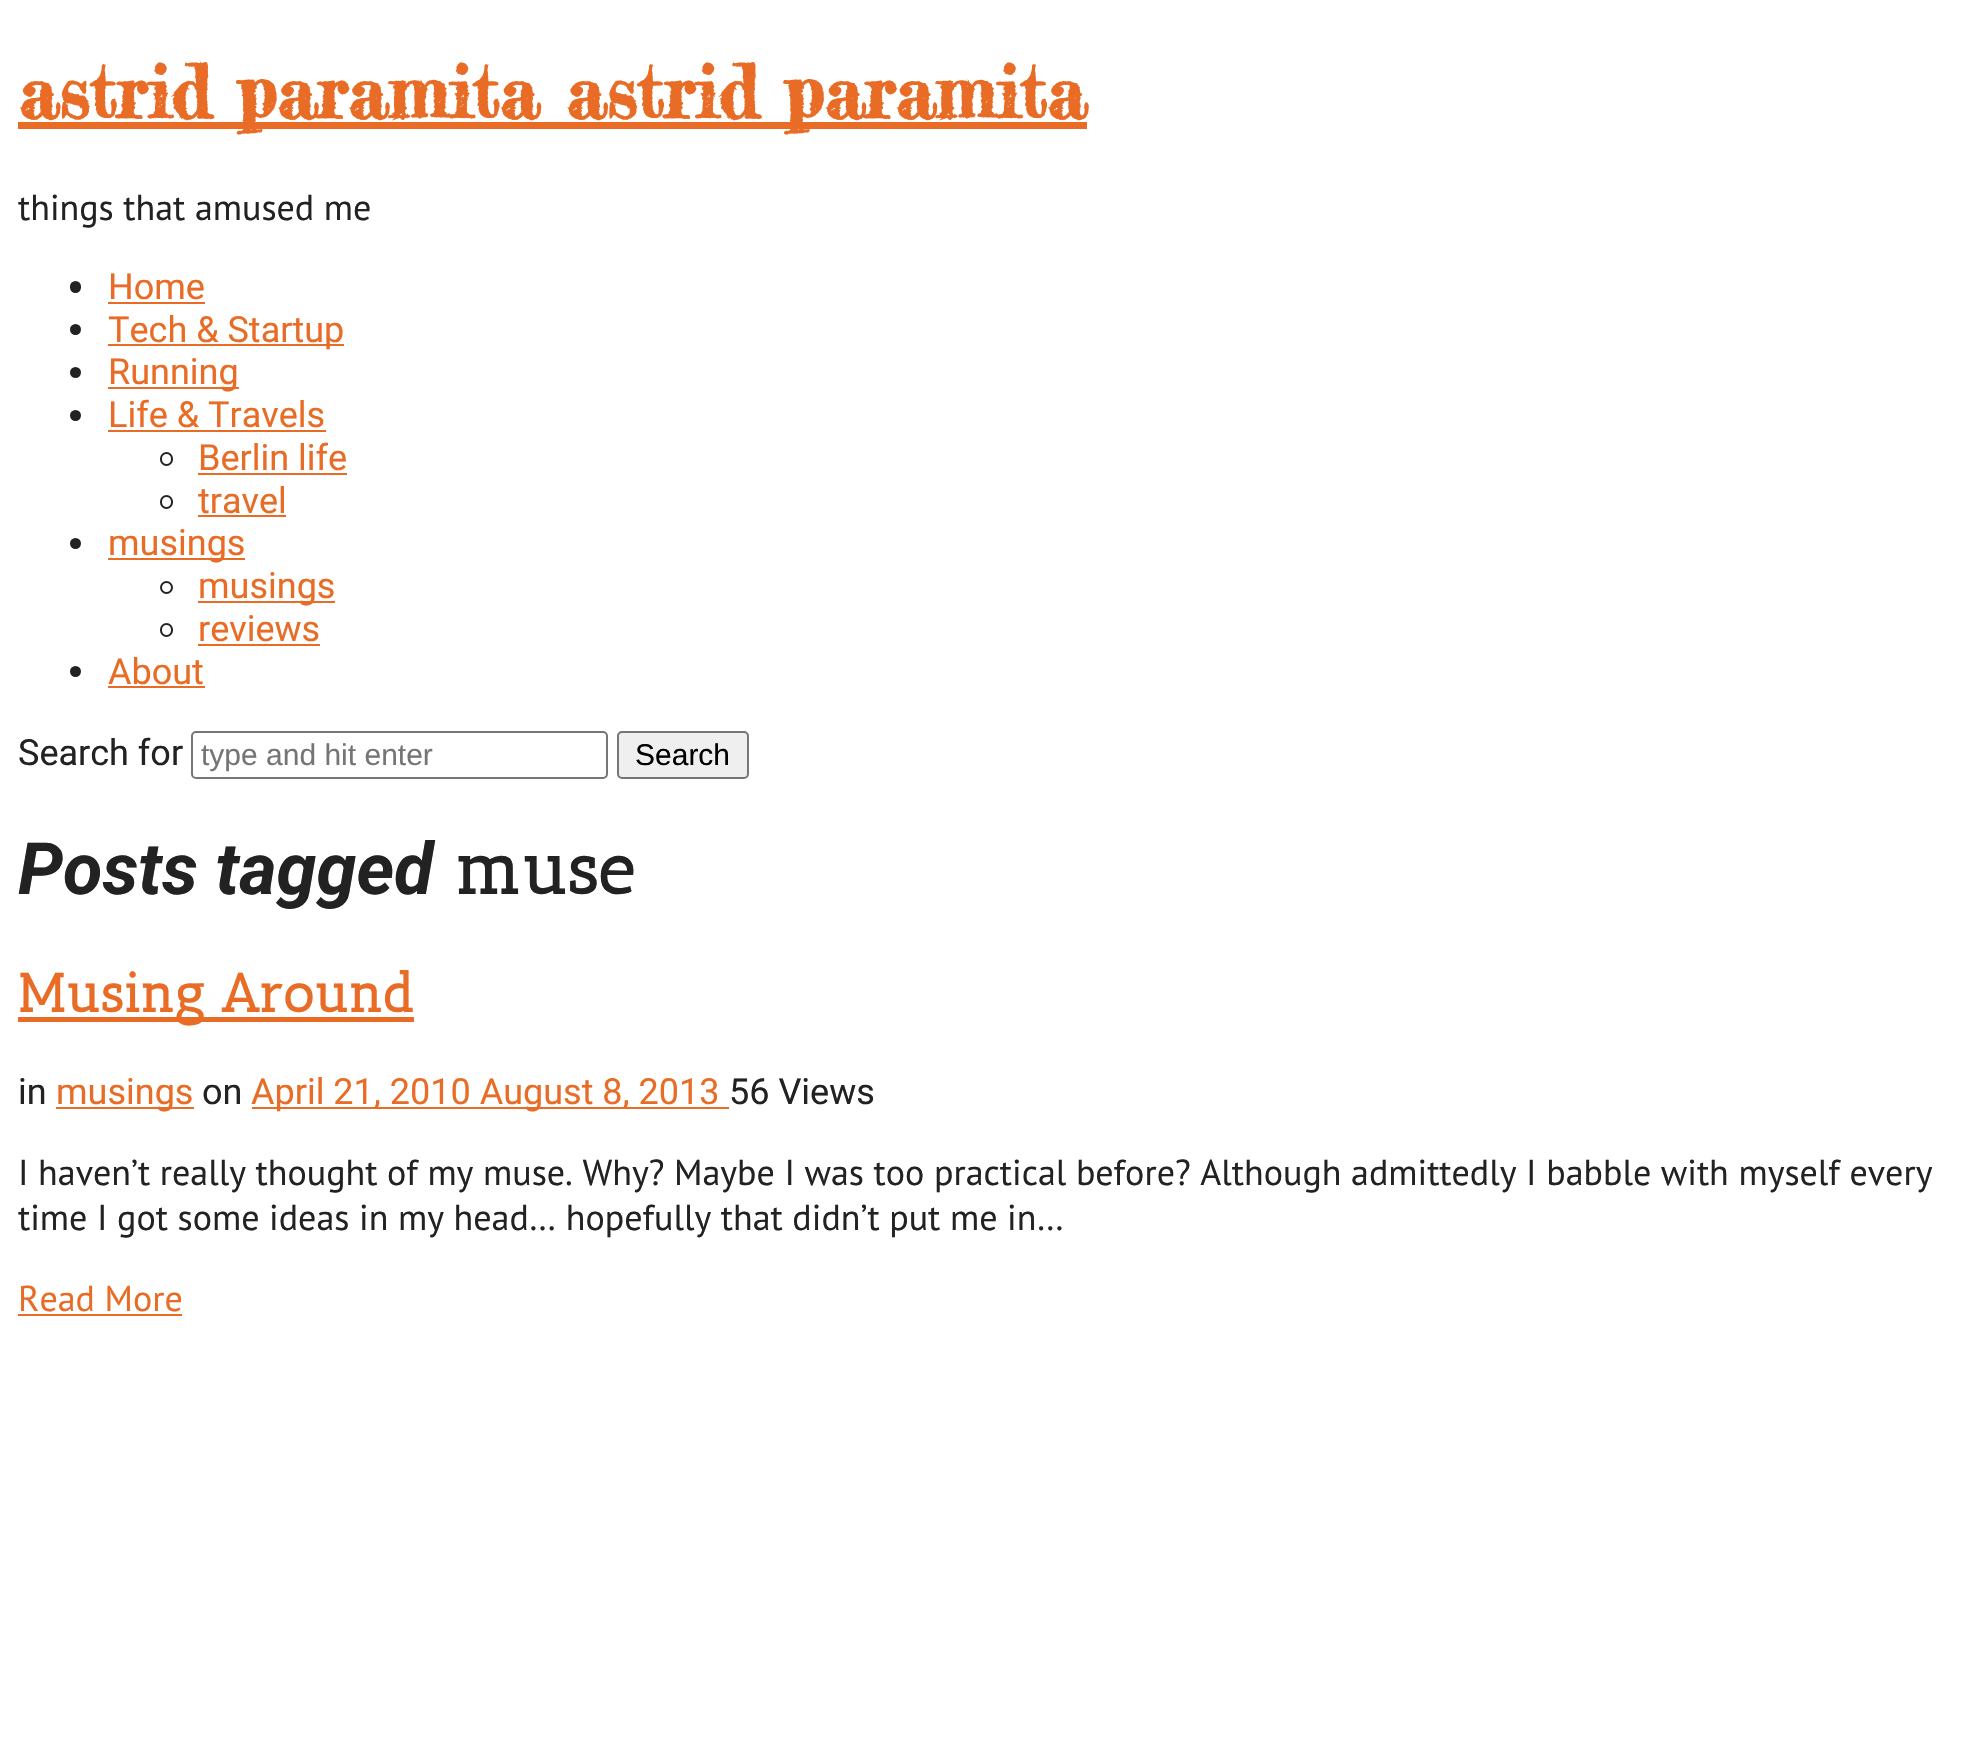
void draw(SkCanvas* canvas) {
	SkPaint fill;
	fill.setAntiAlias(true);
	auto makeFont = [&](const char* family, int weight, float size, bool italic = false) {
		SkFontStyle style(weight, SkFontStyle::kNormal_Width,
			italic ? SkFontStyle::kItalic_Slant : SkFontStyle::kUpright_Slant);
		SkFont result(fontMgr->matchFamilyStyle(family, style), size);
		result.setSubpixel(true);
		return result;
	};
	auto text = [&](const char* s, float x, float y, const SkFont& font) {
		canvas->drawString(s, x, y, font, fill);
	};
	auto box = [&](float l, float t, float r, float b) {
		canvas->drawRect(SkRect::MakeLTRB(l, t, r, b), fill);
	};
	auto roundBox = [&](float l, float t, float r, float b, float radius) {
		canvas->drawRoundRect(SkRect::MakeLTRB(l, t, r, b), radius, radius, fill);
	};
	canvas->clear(0xFFFFFFFF);
	fill.setColor(0xFFE86C25);
	box(18, 122, 1087, 129);
	fill.setColor(0xFF222222);
	roundBox(70, 281, 81, 293, 5.5f);
	fill.setColor(0xFFE86C25);
	box(108, 302, 205, 304);
	fill.setColor(0xFF222222);
	canvas->drawCircle(75.5f, 329.5f, 5.5f, fill);
	fill.setColor(0xFFE86C25);
	box(108, 344, 344, 346);
	fill.setColor(0xFF222222);
	canvas->drawCircle(75.5f, 372.5f, 5.5f, fill);
	fill.setColor(0xFFE86C25);
	box(108, 387, 239, 389);
	fill.setColor(0xFF222222);
	canvas->drawCircle(75.5f, 415.5f, 5.5f, fill);
	fill.setColor(0xFFE86C25);
	box(108, 430, 326, 432);
	fill.setStyle(SkPaint::kStroke_Style);
	fill.setStrokeWidth(2);
	fill.setColor(0xFF222222);
	canvas->drawRoundRect(SkRect::MakeLTRB(161, 453, 172, 465), 5.5f, 5.5f, fill);
	fill.setStyle(SkPaint::kFill_Style);
	fill.setColor(0xFFE86C25);
	box(198, 473, 347, 475);
	fill.setStyle(SkPaint::kStroke_Style);
	fill.setColor(0xFF222222);
	canvas->drawRoundRect(SkRect::MakeLTRB(161, 496, 172, 508), 5.5f, 5.5f, fill);
	fill.setStyle(SkPaint::kFill_Style);
	fill.setColor(0xFFE86C25);
	box(198, 515, 286, 517);
	fill.setColor(0xFF222222);
	canvas->drawCircle(75.5f, 543.5f, 5.5f, fill);
	fill.setColor(0xFFE86C25);
	box(108, 558, 245, 560);
	fill.setStyle(SkPaint::kStroke_Style);
	fill.setColor(0xFF222222);
	canvas->drawCircle(166.5f, 587.5f, 5.5f, fill);
	fill.setStyle(SkPaint::kFill_Style);
	fill.setColor(0xFFE86C25);
	box(198, 601, 335, 603);
	fill.setStyle(SkPaint::kStroke_Style);
	fill.setColor(0xFF222222);
	canvas->drawRoundRect(SkRect::MakeLTRB(161, 624, 172, 636), 5.5f, 5.5f, fill);
	fill.setStyle(SkPaint::kFill_Style);
	fill.setColor(0xFFE86C25);
	box(198, 644, 320, 646);
	fill.setColor(0xFF222222);
	canvas->drawCircle(75.5f, 671.5f, 5.5f, fill);
	fill.setColor(0xFFE86C25);
	box(108, 686, 205, 688);
	fill.setStyle(SkPaint::kStroke_Style);
	fill.setColor(0xFF767676);
	canvas->drawRoundRect(SkRect::MakeLTRB(192, 732, 607, 778), 4, 4, fill);
	fill.setStyle(SkPaint::kFill_Style);
	fill.setColor(0xFFEFEFEF);
	canvas->drawRoundRect(SkRect::MakeLTRB(618, 732, 748, 778), 4, 4, fill);
	fill.setStyle(SkPaint::kStroke_Style);
	fill.setColor(0xFF767676);
	canvas->drawRoundRect(SkRect::MakeLTRB(618, 732, 748, 778), 4, 4, fill);
	fill.setStyle(SkPaint::kFill_Style);
	fill.setColor(0xFFE86C25);
	box(18, 1017, 414, 1022);
	box(56, 1107, 194, 1109);
	box(252, 1107, 729, 1109);
	box(18, 1314, 182, 1316);
	auto font1 = makeFont("Fredericka the Great", 700, 72);
	text("astrid paramita astrid paramita", 18, 118, font1);
	auto font2 = makeFont("PT Sans", 400, 36);
	fill.setColor(0xFF222222);
	text("things that amused me", 18, 220, font2);
	auto font3 = makeFont("Roboto", 400, 36);
	fill.setColor(0xFFE86C25);
	text("Home", 108, 299, font3);
	text("Tech & Startup", 108, 342, font3);
	text("Running", 108, 384, font3);
	text("Life & Travels", 108, 427, font3);
	text("Berlin life", 198, 470, font3);
	text("travel", 198, 513, font3);
	text("musings", 108, 555, font3);
	text("musings", 198, 598, font3);
	text("reviews", 198, 641, font3);
	text("About", 108, 684, font3);
	fill.setColor(0xFF222222);
	text("Search for", 18, 765, font3);
	auto font4 = makeFont("Liberation Sans", 400, 30);
	fill.setColor(0xFF757575);
	text("type and hit enter", 201, 765, font4);
	fill.setColor(0xFF000000);
	text("Search", 635, 765, font4);
	auto font5 = makeFont("Roboto", 700, 72, true);
	fill.setColor(0xFF222222);
	text("Posts tagged", 18, 894, font5);
	auto font6 = makeFont("Antic Slab", 700, 72);
	text("muse", 455, 894, font6);
	auto font7 = makeFont("Antic Slab", 700, 54);
	fill.setColor(0xFFE86C25);
	text("Musing Around", 18, 1012, font7);
	fill.setColor(0xFF222222);
	text("in", 18, 1104, font3);
	fill.setColor(0xFFE86C25);
	text("musings", 56, 1104, font3);
	fill.setColor(0xFF222222);
	text("on", 202, 1104, font3);
	fill.setColor(0xFFE86C25);
	text("April 21, 2010 August 8, 2013", 251, 1104, font3);
	fill.setColor(0xFF222222);
	text("56 Views", 729, 1104, font3);
	text("I haven’t really thought of my muse. Why? Maybe I was too practical before? Although admittedly I babble with myself every", 18, 1185, font2);
	text("time I got some ideas in my head… hopefully that didn’t put me in…", 18, 1230, font2);
	fill.setColor(0xFFE86C25);
	text("Read More", 18, 1311, font2);
}
